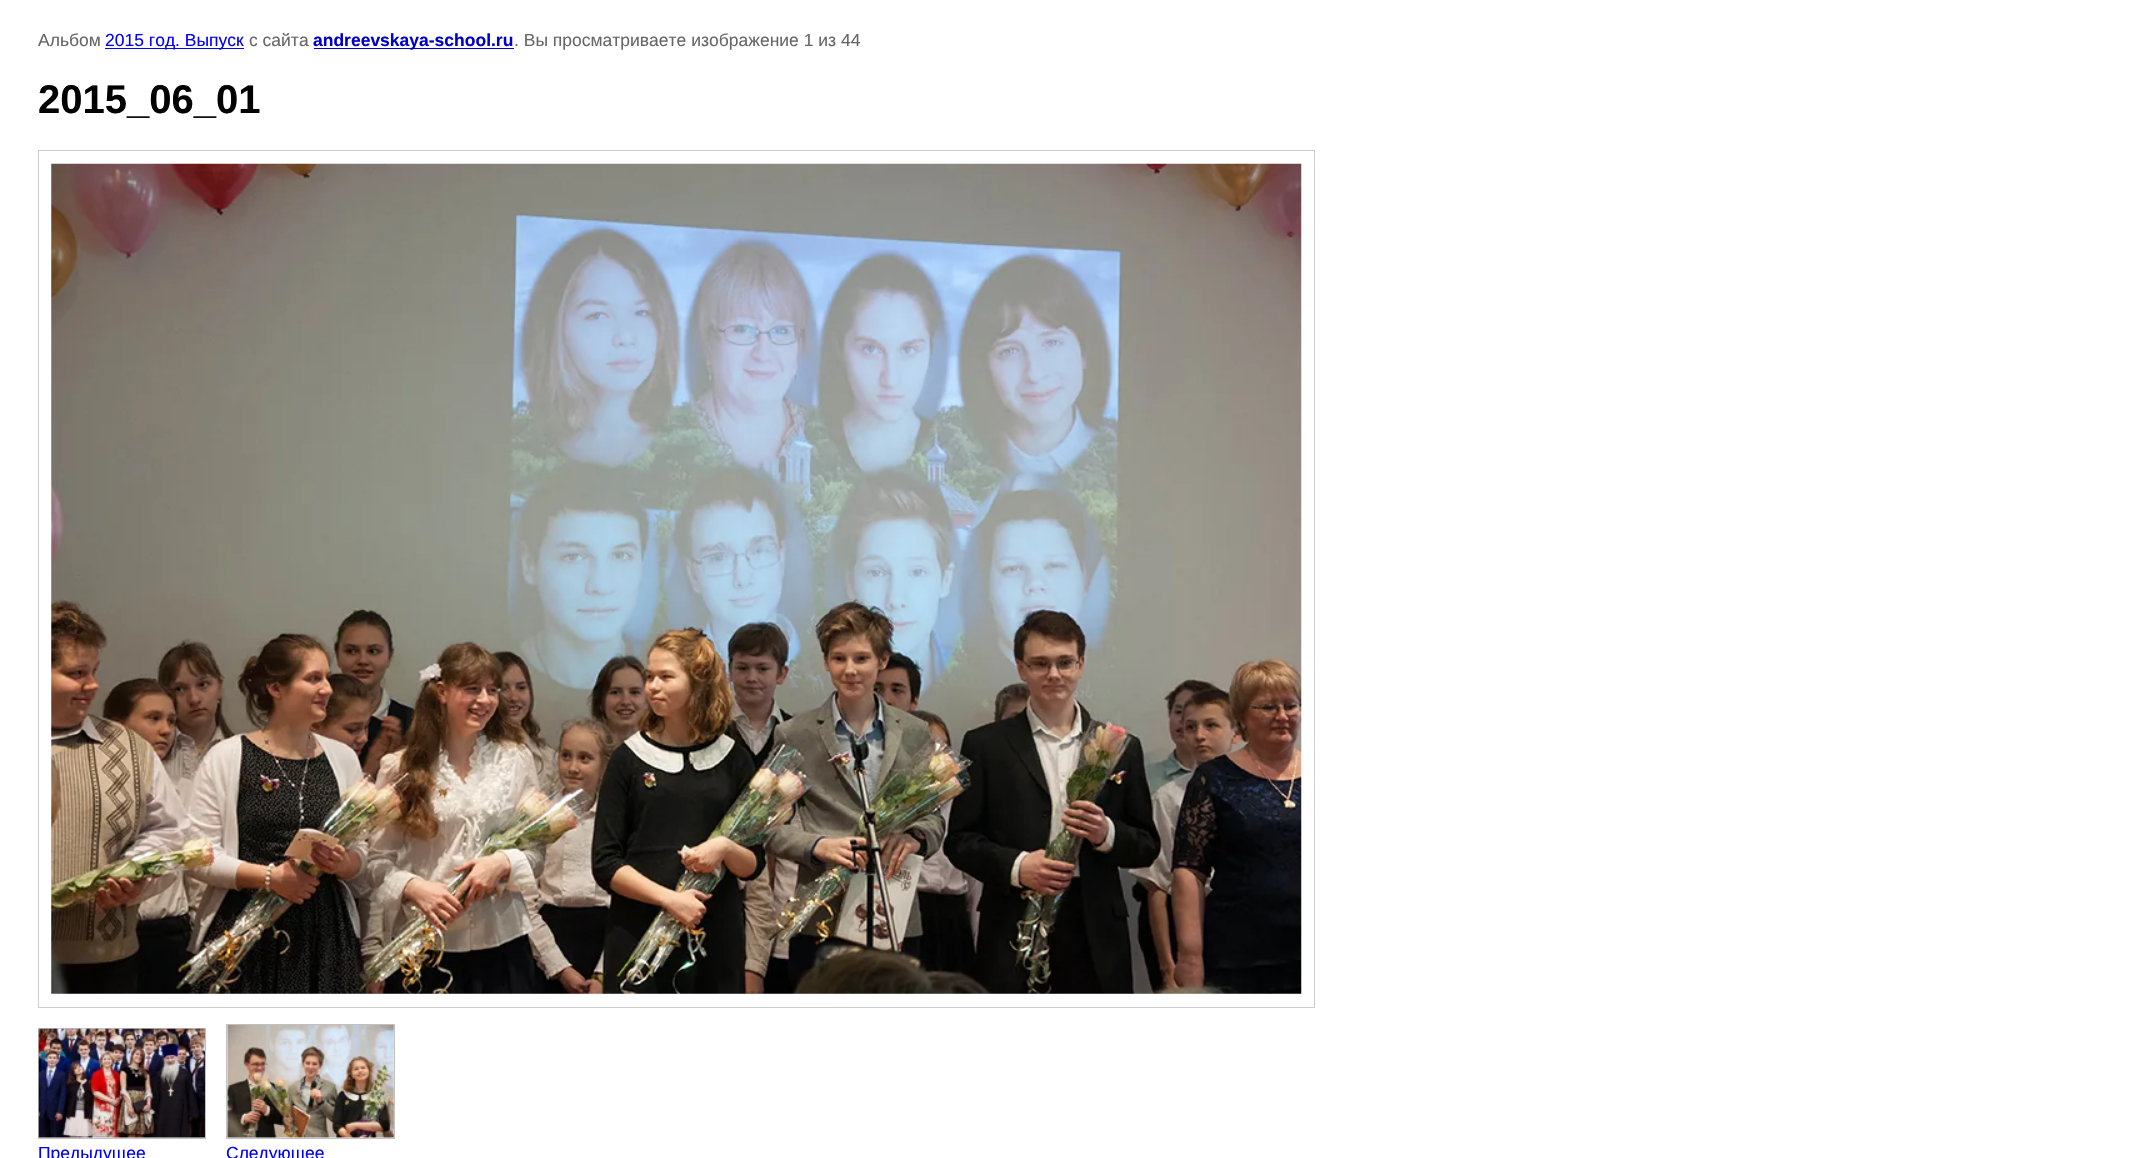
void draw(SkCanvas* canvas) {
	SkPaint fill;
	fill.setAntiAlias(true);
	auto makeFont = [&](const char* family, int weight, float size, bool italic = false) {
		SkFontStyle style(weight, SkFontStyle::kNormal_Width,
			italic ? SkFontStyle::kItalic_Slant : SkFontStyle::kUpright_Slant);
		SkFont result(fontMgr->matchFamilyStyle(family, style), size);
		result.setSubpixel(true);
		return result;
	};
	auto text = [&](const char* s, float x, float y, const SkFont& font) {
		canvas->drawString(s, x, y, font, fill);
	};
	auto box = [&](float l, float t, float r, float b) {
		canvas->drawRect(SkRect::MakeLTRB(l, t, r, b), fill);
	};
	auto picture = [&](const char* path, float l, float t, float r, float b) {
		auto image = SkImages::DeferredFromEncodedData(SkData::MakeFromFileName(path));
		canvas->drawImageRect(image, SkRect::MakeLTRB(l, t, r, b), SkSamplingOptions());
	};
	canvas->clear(0xFFFFFFFF);
	fill.setColor(0xFF0000FF);
	box(105, 48, 244, 49);
	fill.setColor(0xFF0000CC);
	box(314, 48, 514, 49);
	fill.setStyle(SkPaint::kStroke_Style);
	fill.setStrokeWidth(1);
	fill.setColor(0xFFCCCCCC);
	canvas->drawRect(SkRect::MakeLTRB(38.5f, 150.5f, 1314.5f, 1007.5f), fill);
	picture("image0.png", 51, 163, 1302, 994);
	fill.setColor(0xFFC0C0C0);
	canvas->drawRect(SkRect::MakeLTRB(38.5f, 1028.5f, 205.5f, 1138.5f), fill);
	picture("image1.png", 38, 1028, 205, 1138);
	canvas->drawRect(SkRect::MakeLTRB(226.5f, 1024.5f, 394.5f, 1138.5f), fill);
	picture("image2.png", 227, 1025, 394, 1138);
	auto font1 = makeFont("Liberation Sans", 400, 17.5f);
	fill.setStyle(SkPaint::kFill_Style);
	fill.setColor(0xFF666666);
	text("Альбом", 38, 46, font1);
	fill.setColor(0xFF0000FF);
	text("2015 год. Выпуск", 105, 46, font1);
	fill.setColor(0xFF666666);
	text("с сайта", 249, 46, font1);
	auto font2 = makeFont("Liberation Sans", 700, 17.5f);
	fill.setColor(0xFF0000CC);
	text("andreevskaya-school.ru", 313, 46, font2);
	fill.setColor(0xFF666666);
	text(". Вы просматриваете изображение 1 из 44", 514, 46, font1);
	auto font3 = makeFont("Liberation Sans", 700, 40);
	fill.setColor(0xFF000000);
	text("2015_06_01", 38, 113, font3);
	fill.setColor(0xFF0000FF);
	text("Предыдущее", 38, 1159, font1);
	text("Следующее", 226, 1159, font1);
}
